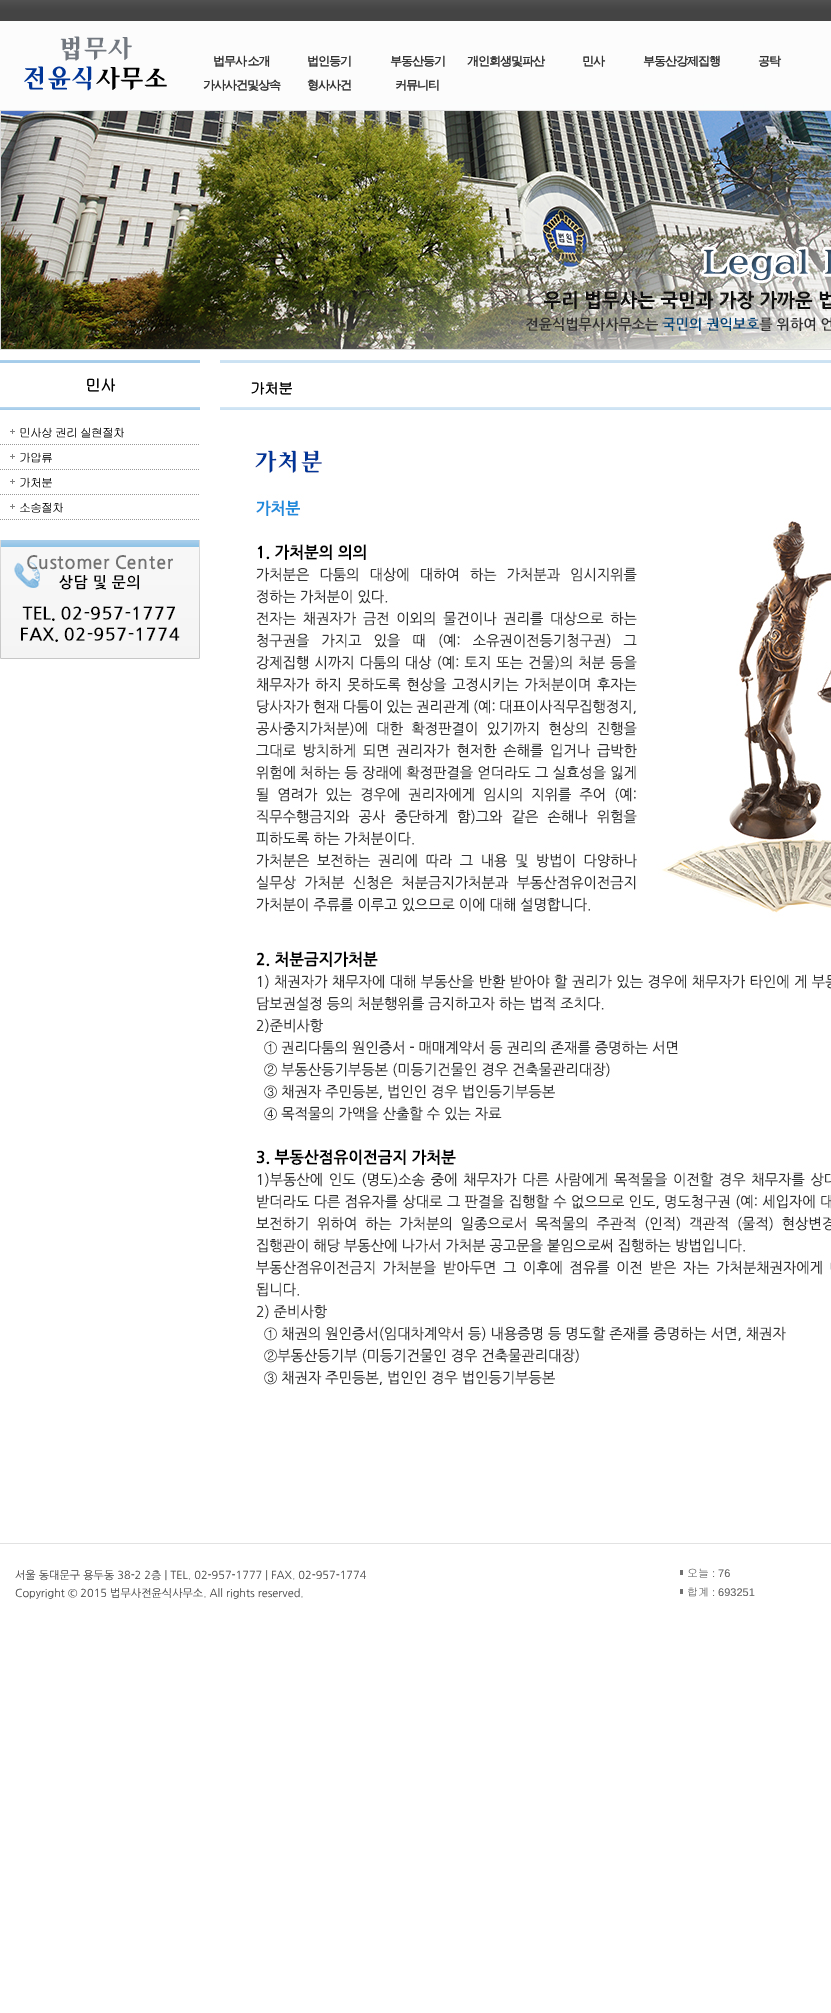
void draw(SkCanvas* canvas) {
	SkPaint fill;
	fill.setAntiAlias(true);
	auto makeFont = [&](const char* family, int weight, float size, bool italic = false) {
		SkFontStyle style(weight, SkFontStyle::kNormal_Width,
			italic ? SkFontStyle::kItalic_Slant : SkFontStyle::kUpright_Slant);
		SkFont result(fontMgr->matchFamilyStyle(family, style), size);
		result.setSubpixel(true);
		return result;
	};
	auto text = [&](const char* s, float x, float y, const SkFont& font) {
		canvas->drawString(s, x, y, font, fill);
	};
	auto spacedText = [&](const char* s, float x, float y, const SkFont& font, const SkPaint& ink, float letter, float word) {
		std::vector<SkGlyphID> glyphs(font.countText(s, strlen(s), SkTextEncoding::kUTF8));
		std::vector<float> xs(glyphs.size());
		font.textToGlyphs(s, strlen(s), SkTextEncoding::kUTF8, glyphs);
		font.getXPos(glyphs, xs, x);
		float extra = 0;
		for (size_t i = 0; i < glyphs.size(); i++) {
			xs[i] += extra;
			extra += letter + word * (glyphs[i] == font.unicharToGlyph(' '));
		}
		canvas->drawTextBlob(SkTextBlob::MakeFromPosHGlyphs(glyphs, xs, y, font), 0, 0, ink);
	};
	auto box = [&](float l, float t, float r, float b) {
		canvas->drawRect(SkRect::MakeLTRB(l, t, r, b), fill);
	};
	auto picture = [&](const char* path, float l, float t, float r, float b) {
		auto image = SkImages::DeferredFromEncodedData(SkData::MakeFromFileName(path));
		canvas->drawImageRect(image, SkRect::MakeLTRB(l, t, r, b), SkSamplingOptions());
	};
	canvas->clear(0xFFFFFFFF);
	picture("image0.png", 0, 0, 831, 110);
	picture("image1.png", 24, 36, 167, 91);
	picture("image2.png", 0, 110, 831, 350);
	picture("image3.png", 1, 111, 831, 349);
	picture("image4.png", 0, 360, 200, 410);
	fill.setStyle(SkPaint::kStroke_Style);
	fill.setStrokeWidth(1);
	fill.setColor(0xFF999999);
	fill.setPathEffect(SkDashPathEffect::Make({{1, 1}}, 0));
	canvas->drawPath(SkPathBuilder().moveTo(0, 444.5f).lineTo(200, 444.5f).detach(), fill);
	fill.setPathEffect(nullptr);
	picture("image5.png", 10, 429, 15, 434);
	fill.setPathEffect(SkDashPathEffect::Make({{1, 1}}, 0));
	canvas->drawPath(SkPathBuilder().moveTo(0, 469.5f).lineTo(200, 469.5f).detach(), fill);
	fill.setPathEffect(nullptr);
	picture("image5.png", 10, 454, 15, 459);
	fill.setPathEffect(SkDashPathEffect::Make({{1, 1}}, 0));
	canvas->drawPath(SkPathBuilder().moveTo(0, 494.5f).lineTo(200, 494.5f).detach(), fill);
	fill.setPathEffect(nullptr);
	picture("image5.png", 10, 479, 15, 484);
	fill.setPathEffect(SkDashPathEffect::Make({{1, 1}}, 0));
	canvas->drawPath(SkPathBuilder().moveTo(0, 519.5f).lineTo(200, 519.5f).detach(), fill);
	fill.setPathEffect(nullptr);
	picture("image5.png", 10, 504, 15, 509);
	picture("image6.png", 0, 540, 200, 659);
	picture("image7.png", 220, 360, 831, 410);
	picture("image8.png", 255, 450, 831, 1385);
	fill.setStyle(SkPaint::kFill_Style);
	fill.setColor(0xFFE2E2E2);
	box(0, 1543, 831, 1544);
	fill.setColor(0xFF707070);
	box(680, 1570, 683, 1575);
	box(680, 1589, 683, 1594);
	auto font1 = makeFont("WenQuanYi Zen Hei", 700, 12);
	fill.setColor(0xFF333333);
	spacedText("법무사 소개", 213, 65, font1, fill, -1, -1);
	spacedText("법인등기", 307, 65, font1, fill, -1, 0);
	spacedText("부동산등기", 390, 65, font1, fill, -1, 0);
	spacedText("개인회생및파산", 467, 65, font1, fill, -1, 0);
	spacedText("민사", 582, 65, font1, fill, -1, 0);
	spacedText("부동산강제집행", 643, 65, font1, fill, -1, 0);
	spacedText("공탁", 758, 65, font1, fill, -1, 0);
	spacedText("가사사건및상속", 203, 89, font1, fill, -1, 0);
	spacedText("형사사건", 307, 89, font1, fill, -1, 0);
	spacedText("커뮤니티", 395, 89, font1, fill, -1, 0);
	auto font2 = makeFont("Gulim", 700, 16);
	fill.setColor(0xFF000000);
	spacedText("민사", 85, 391, font2, fill, -1, 0);
	auto font3 = makeFont("Gulim", 400, 12);
	spacedText("민사상 권리 실현절차", 19, 437, font3, fill, -1, 0);
	spacedText("가압류", 19, 462, font3, fill, -1, 0);
	spacedText("가처분", 19, 487, font3, fill, -1, 0);
	spacedText("소송절차", 19, 512, font3, fill, -1, 0);
	auto font4 = makeFont("Gulim", 700, 15);
	spacedText("가처분", 250, 394, font4, fill, -1, 0);
	auto font5 = makeFont("NanumGothic", 400, 11);
	fill.setColor(0xFF4D4D4D);
	text("서울 동대문구 용두동 38-2 2층 | TEL. 02-957-1777 | FAX. 02-957-1774", 15, 1579, font5);
	text("Copyright © 2015 법무사전윤식사무소. All rights reserved.", 15, 1597, font5);
	auto font6 = makeFont("Gulim", 400, 11);
	fill.setColor(0xFF666666);
	text("오늘", 687, 1577, font6);
	auto font7 = makeFont("Liberation Sans", 400, 11);
	text(": 76", 712, 1577, font7);
	text("합계", 687, 1596, font6);
	text(": 693251", 712, 1596, font7);
}
